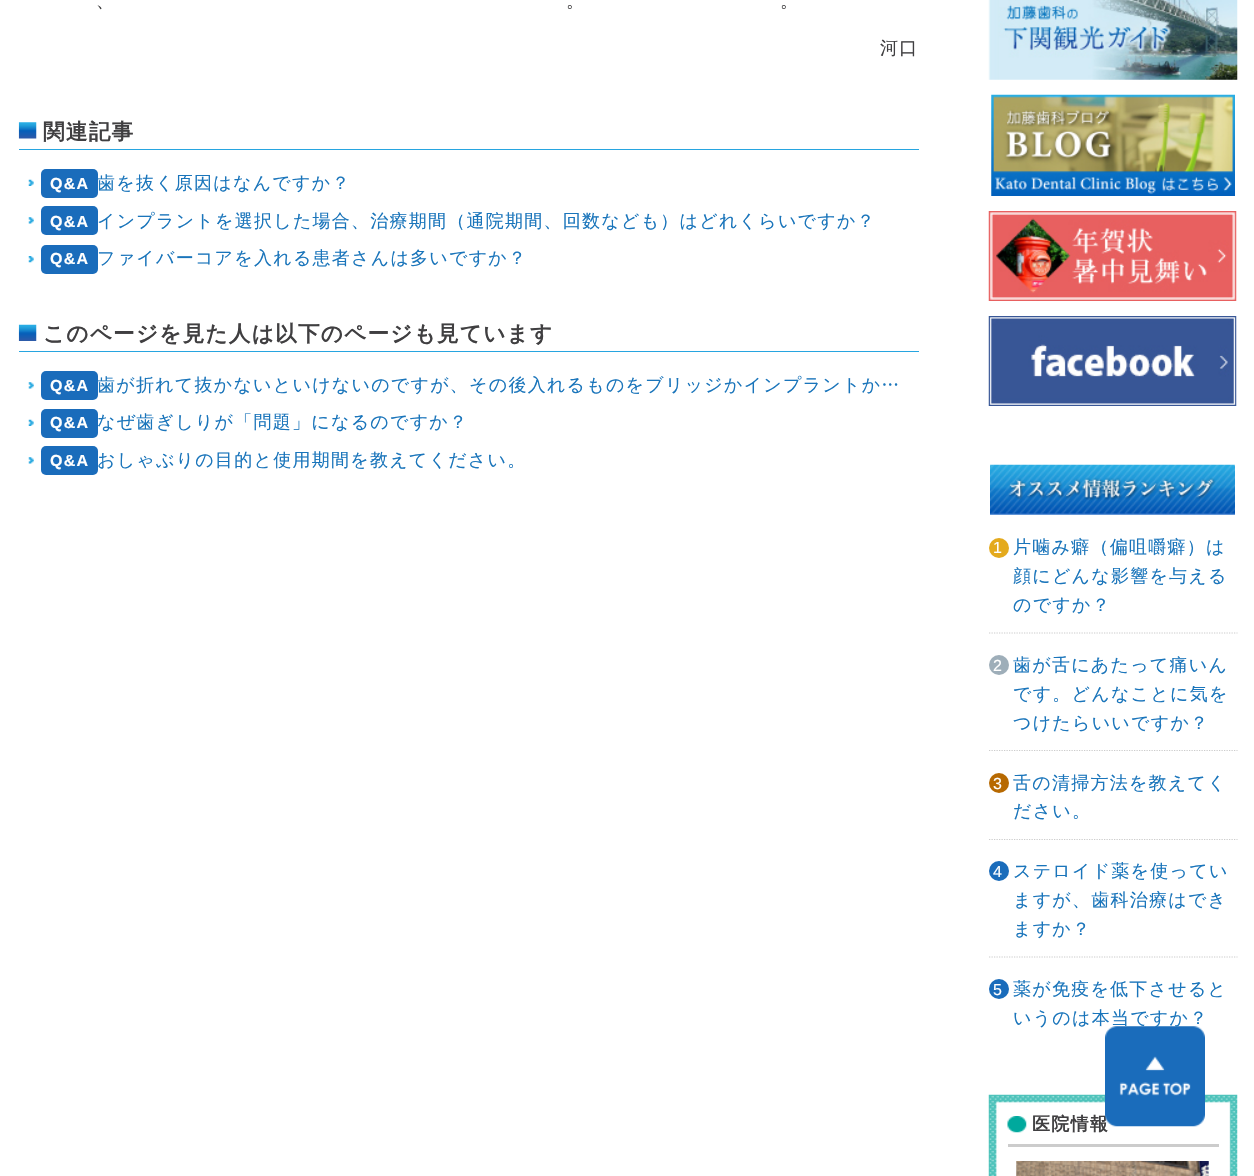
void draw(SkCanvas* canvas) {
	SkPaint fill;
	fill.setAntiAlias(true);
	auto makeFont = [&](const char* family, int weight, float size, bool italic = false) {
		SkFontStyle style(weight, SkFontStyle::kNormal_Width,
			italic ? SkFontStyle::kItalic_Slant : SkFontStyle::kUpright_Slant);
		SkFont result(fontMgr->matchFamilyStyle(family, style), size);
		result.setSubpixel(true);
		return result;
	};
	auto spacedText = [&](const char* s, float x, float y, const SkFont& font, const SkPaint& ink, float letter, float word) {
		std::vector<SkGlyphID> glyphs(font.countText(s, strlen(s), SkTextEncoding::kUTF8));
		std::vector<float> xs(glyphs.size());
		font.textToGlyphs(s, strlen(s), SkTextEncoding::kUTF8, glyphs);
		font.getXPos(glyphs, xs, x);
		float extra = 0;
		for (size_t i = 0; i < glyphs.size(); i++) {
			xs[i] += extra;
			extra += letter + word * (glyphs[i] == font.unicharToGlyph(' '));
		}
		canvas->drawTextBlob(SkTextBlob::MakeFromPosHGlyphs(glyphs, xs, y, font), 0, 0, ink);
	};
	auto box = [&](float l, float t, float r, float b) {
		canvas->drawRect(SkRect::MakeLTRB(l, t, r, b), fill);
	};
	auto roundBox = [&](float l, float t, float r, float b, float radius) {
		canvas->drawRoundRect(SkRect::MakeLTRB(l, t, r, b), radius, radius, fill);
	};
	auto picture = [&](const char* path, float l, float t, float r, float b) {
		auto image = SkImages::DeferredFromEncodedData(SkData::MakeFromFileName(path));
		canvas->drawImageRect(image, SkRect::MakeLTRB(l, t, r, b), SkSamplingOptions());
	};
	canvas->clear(0xFFFFFFFF);
	picture("image0.png", 18, 122, 37, 139);
	fill.setColor(0xFF27A5E0);
	box(19, 149, 919, 150);
	picture("image1.png", 28, 179, 34, 186);
	fill.setColor(0xFF1A6CBB);
	roundBox(41, 169, 98, 198, 5);
	picture("image2.png", 28, 217, 34, 224);
	roundBox(41, 206, 98, 235, 5);
	picture("image3.png", 28, 256, 34, 263);
	roundBox(41, 245, 98, 274, 5);
	picture("image4.png", 18, 324, 37, 341);
	fill.setColor(0xFF27A5E0);
	box(19, 351, 919, 352);
	picture("image2.png", 28, 382, 34, 389);
	fill.setColor(0xFF1A6CBB);
	roundBox(41, 371, 98, 400, 5);
	picture("image1.png", 28, 419, 34, 426);
	roundBox(41, 409, 98, 438, 5);
	picture("image2.png", 28, 457, 34, 464);
	roundBox(41, 446, 98, 475, 5);
	picture("image5.png", 988, 0, 1238, 80);
	picture("image6.png", 991, 94, 1235, 196);
	picture("image7.png", 988, 211, 1237, 301);
	picture("image8.png", 988, 316, 1237, 406);
	picture("image9.png", 990, 464, 1235, 515);
	fill.setStyle(SkPaint::kStroke_Style);
	fill.setStrokeWidth(1.2f);
	fill.setColor(0xFFCCCCCC);
	fill.setPathEffect(SkDashPathEffect::Make({{1.25f, 1.25f}}, 0));
	canvas->drawPath(SkPathBuilder().moveTo(989, 633).lineTo(1237.5f, 633).detach(), fill);
	fill.setPathEffect(nullptr);
	fill.setStyle(SkPaint::kFill_Style);
	fill.setColor(0xFFE4AA1D);
	canvas->drawCircle(999, 548, 10, fill);
	fill.setStyle(SkPaint::kStroke_Style);
	fill.setColor(0xFFCCCCCC);
	fill.setPathEffect(SkDashPathEffect::Make({{1.25f, 1.25f}}, 0));
	canvas->drawPath(SkPathBuilder().moveTo(989, 750.5f).lineTo(1237.5f, 750.5f).detach(), fill);
	fill.setPathEffect(nullptr);
	fill.setStyle(SkPaint::kFill_Style);
	fill.setColor(0xFF9EAEB9);
	canvas->drawCircle(999, 665, 10, fill);
	fill.setStyle(SkPaint::kStroke_Style);
	fill.setColor(0xFFCCCCCC);
	fill.setPathEffect(SkDashPathEffect::Make({{1.25f, 1.25f}}, 0));
	canvas->drawPath(SkPathBuilder().moveTo(989, 839.5f).lineTo(1237.5f, 839.5f).detach(), fill);
	fill.setPathEffect(nullptr);
	fill.setStyle(SkPaint::kFill_Style);
	fill.setColor(0xFFB76901);
	canvas->drawCircle(999, 783, 10, fill);
	fill.setStyle(SkPaint::kStroke_Style);
	fill.setColor(0xFFCCCCCC);
	fill.setPathEffect(SkDashPathEffect::Make({{1.25f, 1.25f}}, 0));
	canvas->drawPath(SkPathBuilder().moveTo(989, 957).lineTo(1237.5f, 957).detach(), fill);
	fill.setPathEffect(nullptr);
	fill.setStyle(SkPaint::kFill_Style);
	fill.setColor(0xFF1A6CBB);
	canvas->drawCircle(999, 871, 10, fill);
	canvas->drawCircle(999, 989, 10, fill);
	picture("image10.png", 988, 1094, 1238, 1176);
	picture("image11.png", 1007, 1116, 1027, 1133);
	fill.setColor(0xFFCCCCCC);
	box(1008, 1144, 1219, 1147);
	picture("image12.png", 1016, 1161, 1209, 1176);
	auto font1 = makeFont("WenQuanYi Zen Hei", 500, 18);
	fill.setColor(0xFF403F41);
	spacedText("、", 96, 7, font1, fill, 1.25f, 0);
	spacedText("。", 566, 7, font1, fill, 1.25f, 0);
	spacedText("。", 780, 7, font1, fill, 1.25f, 0);
	spacedText("河口", 880, 54, font1, fill, 1.25f, 0);
	auto font2 = makeFont("WenQuanYi Zen Hei", 700, 21.6f);
	spacedText("関連記事", 43, 139, font2, fill, 1.25f, 0);
	auto font3 = makeFont("Liberation Sans", 700, 16);
	fill.setColor(0xFFFFFFFF);
	spacedText("Q&A", 50, 189, font3, fill, 1.25f, 0);
	fill.setColor(0xFF1A75BB);
	spacedText("歯を抜く原因はなんですか？", 97, 189, font1, fill, 1.25f, 0);
	fill.setColor(0xFFFFFFFF);
	spacedText("Q&A", 50, 227, font3, fill, 1.25f, 0);
	fill.setColor(0xFF1A75BB);
	spacedText("インプラントを選択した場合、治療期間（通院期間、回数なども）はどれくらいですか？", 97, 227, font1, fill, 1.25f, 0);
	fill.setColor(0xFFFFFFFF);
	spacedText("Q&A", 50, 264, font3, fill, 1.25f, 0);
	fill.setColor(0xFF1A75BB);
	spacedText("ファイバーコアを入れる患者さんは多いですか？", 97, 264, font1, fill, 1.25f, 0);
	fill.setColor(0xFF403F41);
	spacedText("このページを見た人は以下のページも見ています", 43, 341, font2, fill, 1.25f, 0);
	fill.setColor(0xFFFFFFFF);
	spacedText("Q&A", 50, 391, font3, fill, 1.25f, 0);
	fill.setColor(0xFF1A75BB);
	spacedText("歯が折れて抜かないといけないのですが、その後入れるものをブリッジかインプラントか…", 97, 391, font1, fill, 1.25f, 0);
	fill.setColor(0xFFFFFFFF);
	spacedText("Q&A", 50, 428, font3, fill, 1.25f, 0);
	fill.setColor(0xFF1A75BB);
	spacedText("なぜ歯ぎしりが「問題」になるのですか？", 97, 428, font1, fill, 1.25f, 0);
	fill.setColor(0xFFFFFFFF);
	spacedText("Q&A", 50, 466, font3, fill, 1.25f, 0);
	fill.setColor(0xFF1A75BB);
	spacedText("おしゃぶりの目的と使用期間を教えてください。", 97, 466, font1, fill, 1.25f, 0);
	spacedText("片噛み癖（偏咀嚼癖）は", 1013, 553, font1, fill, 1.25f, 0);
	auto font4 = makeFont("Liberation Sans", 400, 16);
	fill.setColor(0xFFFFFFFF);
	spacedText("1", 993, 553, font4, fill, 1.25f, 0);
	fill.setColor(0xFF1A75BB);
	spacedText("顔にどんな影響を与える", 1013, 582, font1, fill, 1.25f, 0);
	spacedText("のですか？", 1013, 611, font1, fill, 1.25f, 0);
	spacedText("歯が舌にあたって痛いん", 1013, 671, font1, fill, 1.25f, 0);
	fill.setColor(0xFFFFFFFF);
	spacedText("2", 993, 671, font4, fill, 1.25f, 0);
	fill.setColor(0xFF1A75BB);
	spacedText("です。どんなことに気を", 1013, 700, font1, fill, 1.25f, 0);
	spacedText("つけたらいいですか？", 1013, 729, font1, fill, 1.25f, 0);
	spacedText("舌の清掃方法を教えてく", 1013, 789, font1, fill, 1.25f, 0);
	fill.setColor(0xFFFFFFFF);
	spacedText("3", 993, 789, font4, fill, 1.25f, 0);
	fill.setColor(0xFF1A75BB);
	spacedText("ださい。", 1013, 817, font1, fill, 1.25f, 0);
	spacedText("ステロイド薬を使ってい", 1013, 877, font1, fill, 1.25f, 0);
	fill.setColor(0xFFFFFFFF);
	spacedText("4", 993, 877, font4, fill, 1.25f, 0);
	fill.setColor(0xFF1A75BB);
	spacedText("ますが、歯科治療はでき", 1013, 906, font1, fill, 1.25f, 0);
	spacedText("ますか？", 1013, 935, font1, fill, 1.25f, 0);
	spacedText("薬が免疫を低下させると", 1013, 995, font1, fill, 1.25f, 0);
	fill.setColor(0xFFFFFFFF);
	spacedText("5", 993, 995, font4, fill, 1.25f, 0);
	fill.setColor(0xFF1A75BB);
	spacedText("いうのは本当ですか？", 1013, 1024, font1, fill, 1.25f, 0);
	auto font5 = makeFont("WenQuanYi Zen Hei", 700, 18);
	fill.setColor(0xFF403F41);
	spacedText("医院情報", 1032, 1130, font5, fill, 1.25f, 0);
	picture("image13.png", 1105, 1026, 1205, 1127);
}
